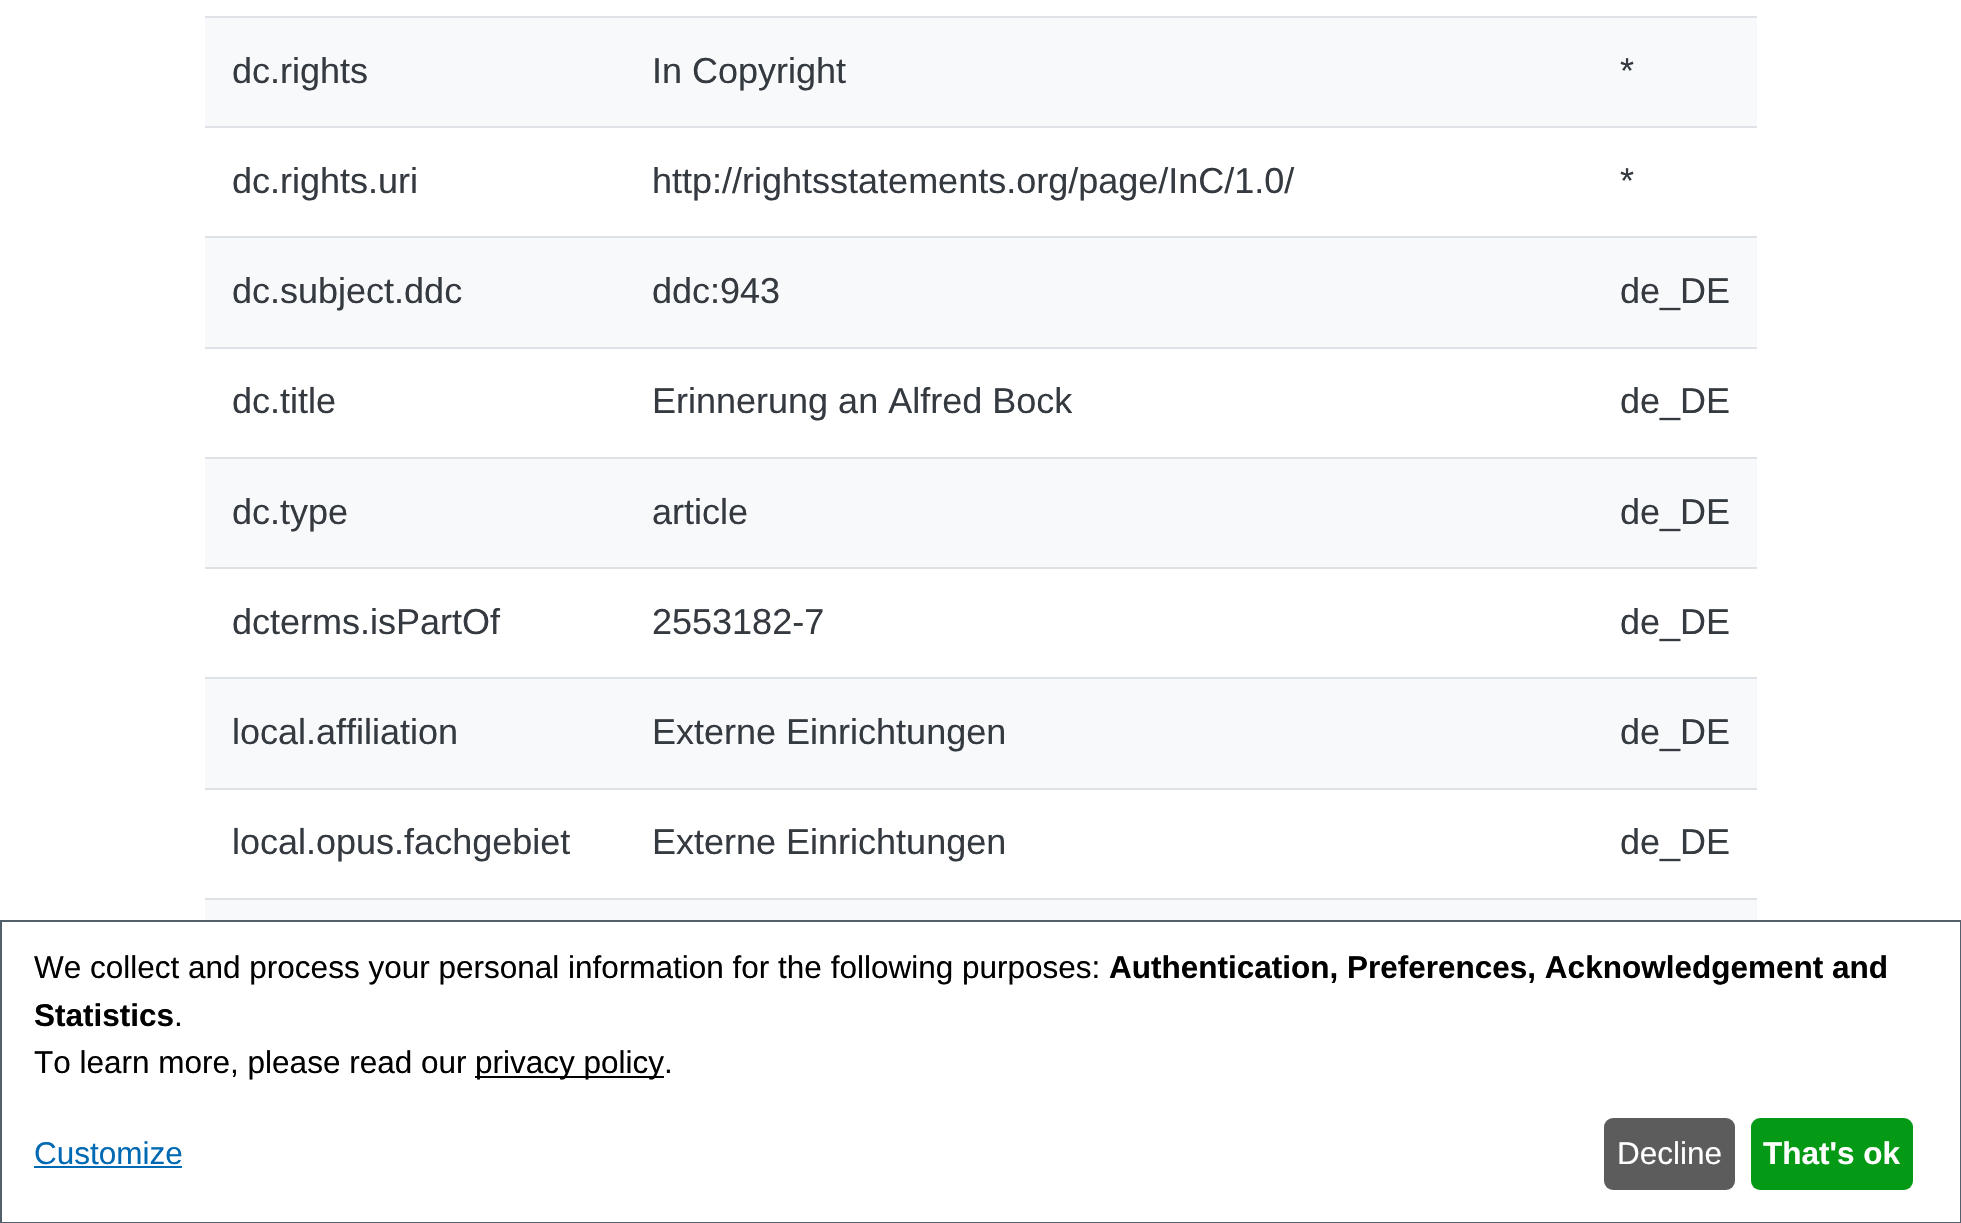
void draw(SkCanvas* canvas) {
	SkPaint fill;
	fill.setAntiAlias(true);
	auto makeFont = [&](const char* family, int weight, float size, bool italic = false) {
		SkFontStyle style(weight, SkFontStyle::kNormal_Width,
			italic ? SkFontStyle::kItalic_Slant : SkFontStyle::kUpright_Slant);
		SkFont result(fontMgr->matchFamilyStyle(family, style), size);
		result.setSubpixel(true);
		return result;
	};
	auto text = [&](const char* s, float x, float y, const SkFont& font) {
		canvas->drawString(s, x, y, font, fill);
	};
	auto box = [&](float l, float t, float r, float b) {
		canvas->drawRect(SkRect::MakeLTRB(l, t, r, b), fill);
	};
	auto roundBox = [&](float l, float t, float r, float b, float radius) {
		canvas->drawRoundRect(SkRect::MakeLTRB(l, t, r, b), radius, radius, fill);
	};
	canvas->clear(0xFFFFFFFF);
	fill.setColor(0xFFF8F9FA);
	box(205, 18, 1757, 126);
	fill.setColor(0xFFDEE2E6);
	box(205, 16, 1757, 18);
	box(205, 126, 1757, 128);
	fill.setColor(0xFFF8F9FA);
	box(205, 238, 1757, 347);
	fill.setColor(0xFFDEE2E6);
	box(205, 236, 1757, 238);
	box(205, 347, 1757, 349);
	fill.setColor(0xFFF8F9FA);
	box(205, 459, 1757, 567);
	fill.setColor(0xFFDEE2E6);
	box(205, 457, 1757, 459);
	box(205, 567, 1757, 569);
	fill.setColor(0xFFF8F9FA);
	box(205, 679, 1757, 788);
	fill.setColor(0xFFDEE2E6);
	box(205, 677, 1757, 679);
	box(205, 788, 1757, 790);
	fill.setColor(0xFFF8F9FA);
	box(205, 900, 1757, 920);
	fill.setColor(0xFFDEE2E6);
	box(205, 898, 1757, 900);
	fill.setStyle(SkPaint::kStroke_Style);
	fill.setStrokeWidth(2);
	fill.setColor(0xFF53606B);
	canvas->drawRect(SkRect::MakeLTRB(1, 921, 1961, 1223), fill);
	fill.setStyle(SkPaint::kFill_Style);
	fill.setColor(0xFF000000);
	box(475, 1076, 664, 1078);
	fill.setColor(0xFF0069B3);
	box(34, 1166, 182, 1168);
	fill.setColor(0xFF5C5C5C);
	roundBox(1604, 1118, 1735, 1190, 9);
	fill.setColor(0xFF049A16);
	roundBox(1751, 1118, 1913, 1190, 9);
	auto font1 = makeFont("Liberation Sans", 400, 36);
	fill.setColor(0xFF343A40);
	text("dc.rights", 232, 83, font1);
	text("In Copyright", 652, 83, font1);
	text("*", 1620, 83, font1);
	text("dc.rights.uri", 232, 193, font1);
	text("http://rightsstatements.org/page/InC/1.0/", 652, 193, font1);
	text("*", 1620, 193, font1);
	text("dc.subject.ddc", 232, 303, font1);
	text("ddc:943", 652, 303, font1);
	text("de_DE", 1620, 303, font1);
	text("dc.title", 232, 413, font1);
	text("Erinnerung an Alfred Bock", 652, 413, font1);
	text("de_DE", 1620, 413, font1);
	text("dc.type", 232, 524, font1);
	text("article", 652, 524, font1);
	text("de_DE", 1620, 524, font1);
	text("dcterms.isPartOf", 232, 634, font1);
	text("2553182-7", 652, 634, font1);
	text("de_DE", 1620, 634, font1);
	text("local.affiliation", 232, 744, font1);
	text("Externe Einrichtungen", 652, 744, font1);
	text("de_DE", 1620, 744, font1);
	text("local.opus.fachgebiet", 232, 854, font1);
	text("Externe Einrichtungen", 652, 854, font1);
	text("de_DE", 1620, 854, font1);
	auto font2 = makeFont("Liberation Sans", 400, 31.5f);
	fill.setColor(0xFF000000);
	text("We collect and process your personal information for the following purposes:", 34, 978, font2);
	auto font3 = makeFont("Liberation Sans", 700, 31.5f);
	text("Authentication, Preferences, Acknowledgement and", 1109, 978, font3);
	text("Statistics", 34, 1026, font3);
	text(".", 174, 1026, font2);
	text("To learn more, please read our", 34, 1073, font2);
	text("privacy policy.", 475, 1073, font2);
	fill.setColor(0xFF0069B3);
	text("Customize", 34, 1164, font2);
	fill.setColor(0xFFFFFFFF);
	text("Decline", 1617, 1164, font2);
	text("That's ok", 1763, 1164, font3);
}
